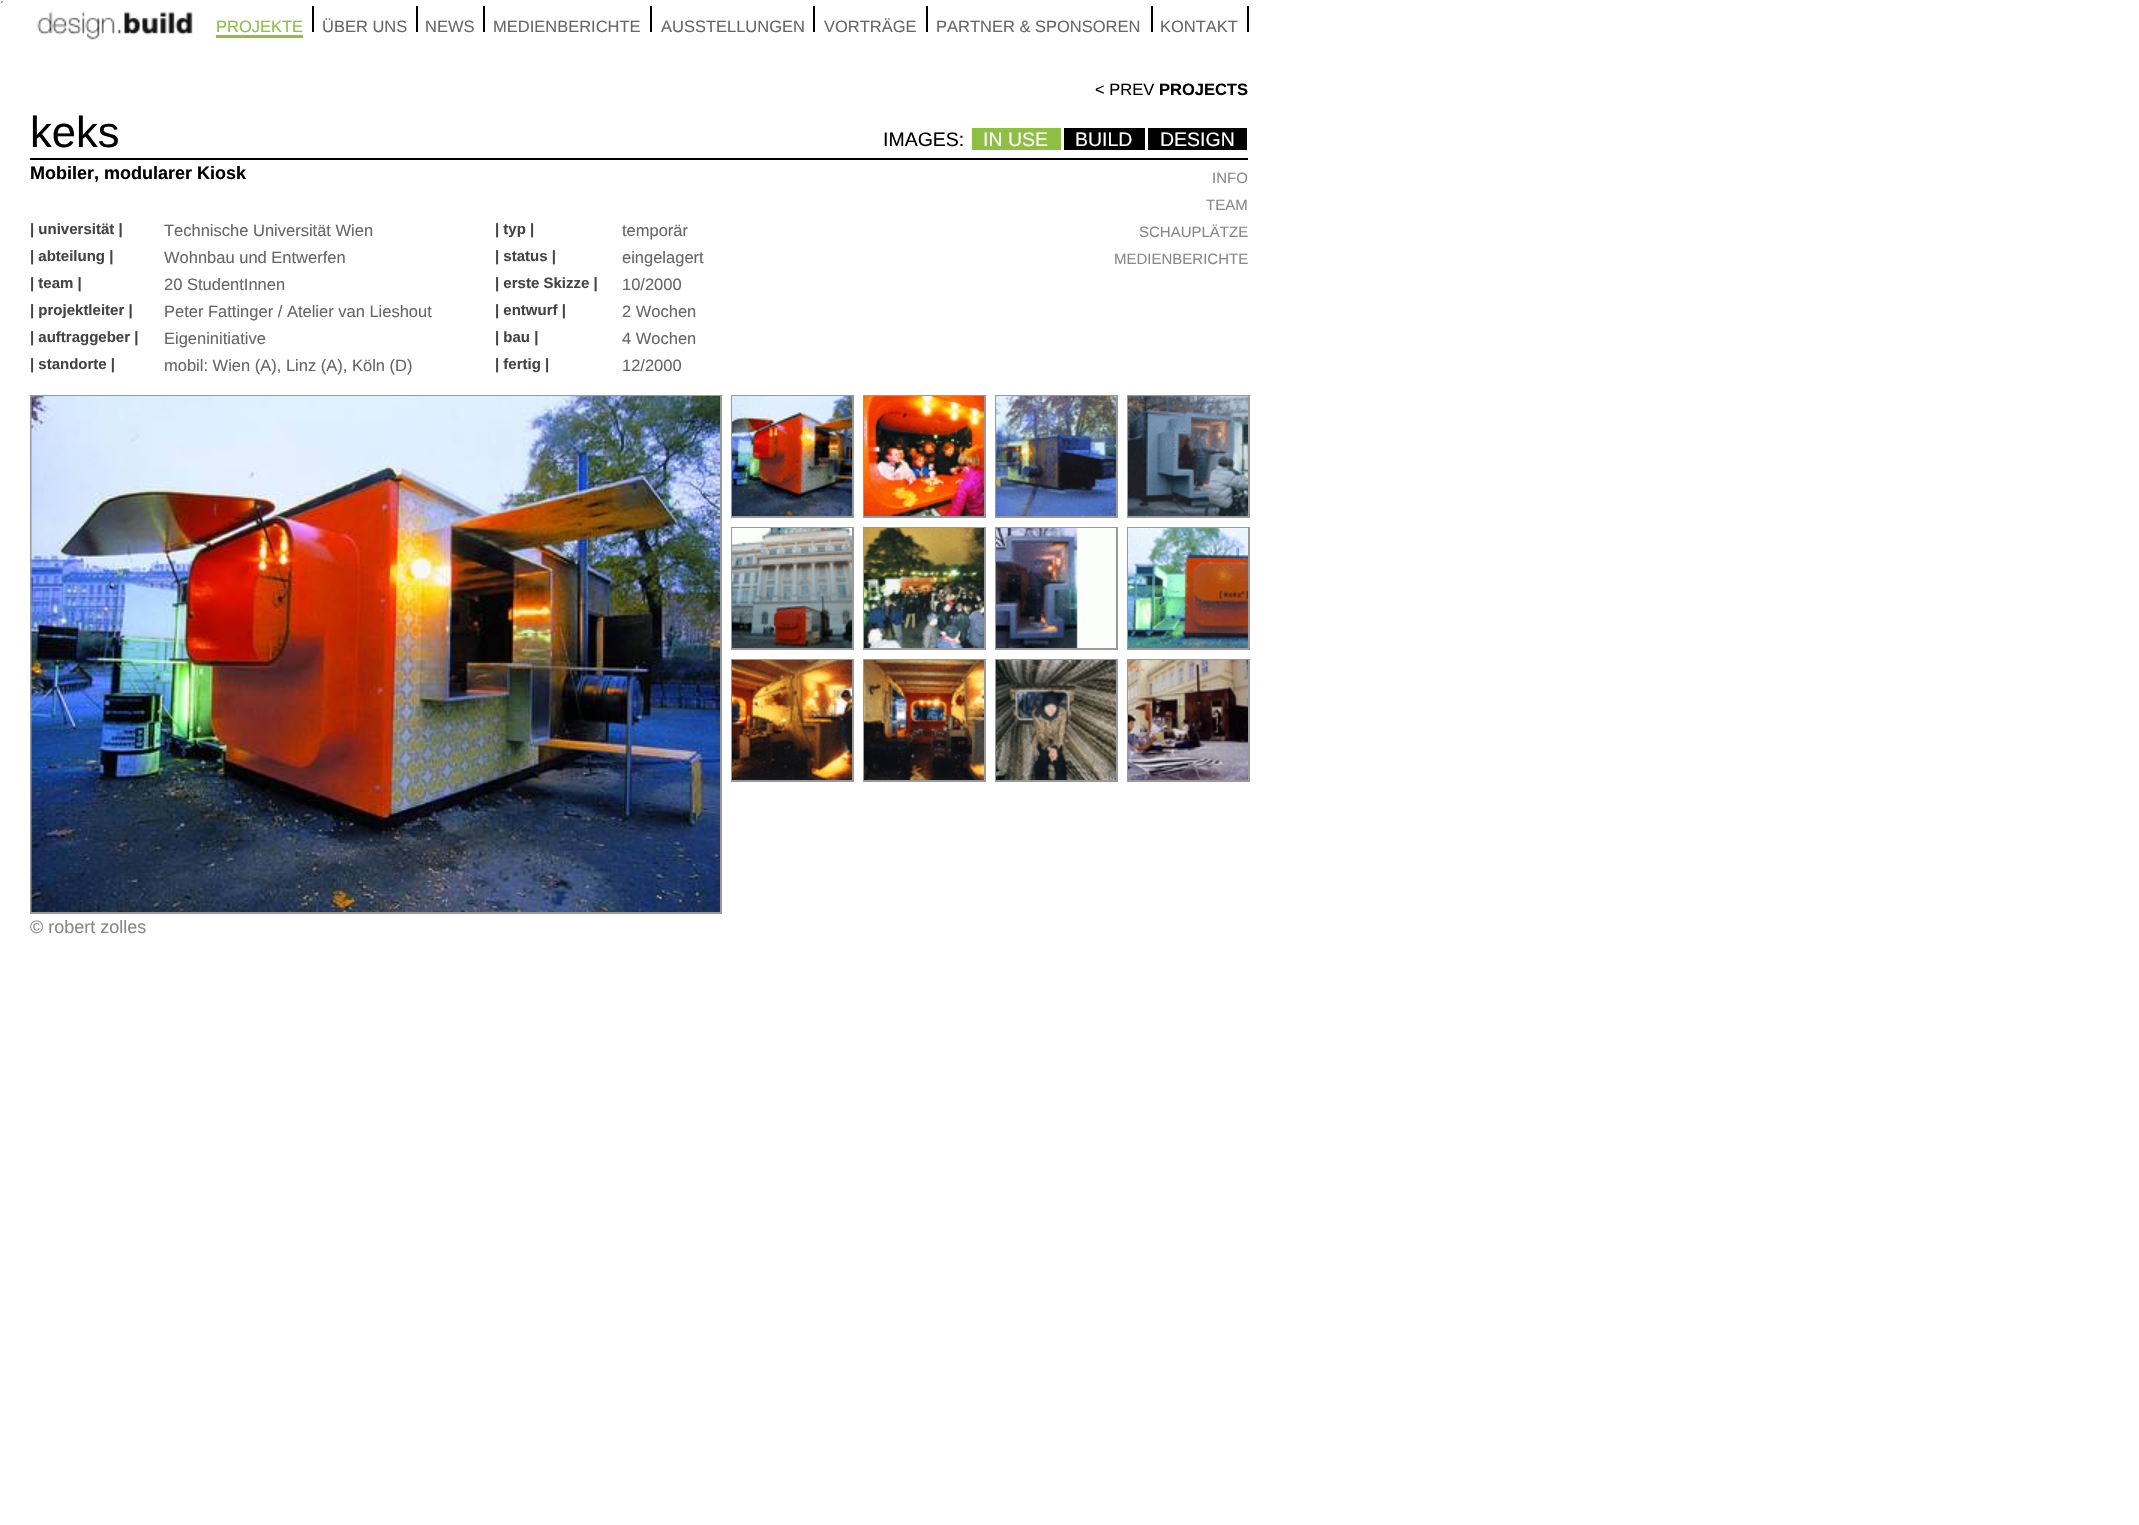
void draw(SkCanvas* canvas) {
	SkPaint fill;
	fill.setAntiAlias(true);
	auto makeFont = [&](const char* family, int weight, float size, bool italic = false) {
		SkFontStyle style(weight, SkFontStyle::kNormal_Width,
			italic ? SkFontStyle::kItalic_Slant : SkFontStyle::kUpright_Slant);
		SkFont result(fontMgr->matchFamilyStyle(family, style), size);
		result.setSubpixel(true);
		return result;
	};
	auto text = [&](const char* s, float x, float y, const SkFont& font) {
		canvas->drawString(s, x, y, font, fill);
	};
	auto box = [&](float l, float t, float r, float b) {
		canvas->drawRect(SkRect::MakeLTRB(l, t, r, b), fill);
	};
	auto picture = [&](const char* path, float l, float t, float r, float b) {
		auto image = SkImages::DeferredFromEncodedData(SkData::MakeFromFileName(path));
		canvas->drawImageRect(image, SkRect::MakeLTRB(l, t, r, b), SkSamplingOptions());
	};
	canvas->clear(0xFFFFFFFF);
	picture("image0.png", 37, 11, 193, 40);
	fill.setColor(0xFF000000);
	box(312, 6, 314, 32);
	fill.setColor(0xFF8CBF42);
	box(216, 35, 303, 38);
	fill.setColor(0xFF000000);
	box(416, 6, 418, 32);
	box(483, 6, 485, 32);
	box(650, 6, 652, 32);
	box(813, 6, 815, 32);
	box(926, 6, 928, 32);
	box(1151, 6, 1153, 32);
	box(1247, 6, 1249, 32);
	box(30, 158, 1248, 160);
	fill.setColor(0xFF8CBF42);
	box(972, 128, 1061, 150);
	fill.setColor(0xFF000000);
	box(1064, 128, 1145, 150);
	box(1148, 128, 1247, 150);
	picture("image1.png", 1, 1, 3, 3);
	picture("image2.png", 1, 1, 3, 3);
	picture("image3.png", 1, 1, 3, 3);
	picture("image4.png", 1, 1, 3, 3);
	picture("image5.png", 1, 1, 3, 3);
	picture("image6.png", 1, 1, 3, 3);
	picture("image7.png", 1, 1, 3, 3);
	picture("image8.png", 1, 1, 3, 3);
	picture("image9.png", 1, 1, 3, 3);
	picture("image10.png", 1, 1, 3, 3);
	picture("image11.png", 1, 1, 3, 3);
	picture("image12.png", 1, 1, 3, 3);
	fill.setStyle(SkPaint::kStroke_Style);
	fill.setStrokeWidth(2);
	fill.setColor(0xFF999999);
	canvas->drawRect(SkRect::MakeLTRB(732, 396, 853, 517), fill);
	picture("image13.png", 732, 396, 852, 516);
	canvas->drawRect(SkRect::MakeLTRB(864, 396, 985, 517), fill);
	picture("image14.png", 864, 396, 984, 516);
	canvas->drawRect(SkRect::MakeLTRB(996, 396, 1117, 517), fill);
	picture("image15.png", 996, 396, 1116, 516);
	canvas->drawRect(SkRect::MakeLTRB(1128, 396, 1249, 517), fill);
	picture("image16.png", 1128, 396, 1248, 516);
	canvas->drawRect(SkRect::MakeLTRB(732, 528, 853, 649), fill);
	picture("image17.png", 732, 528, 852, 648);
	canvas->drawRect(SkRect::MakeLTRB(864, 528, 985, 649), fill);
	picture("image18.png", 864, 528, 984, 648);
	canvas->drawRect(SkRect::MakeLTRB(996, 528, 1117, 649), fill);
	picture("image19.png", 996, 528, 1116, 648);
	canvas->drawRect(SkRect::MakeLTRB(1128, 528, 1249, 649), fill);
	picture("image20.png", 1128, 528, 1248, 648);
	canvas->drawRect(SkRect::MakeLTRB(732, 660, 853, 781), fill);
	picture("image21.png", 732, 660, 852, 780);
	canvas->drawRect(SkRect::MakeLTRB(864, 660, 985, 781), fill);
	picture("image22.png", 864, 660, 984, 780);
	canvas->drawRect(SkRect::MakeLTRB(996, 660, 1117, 781), fill);
	picture("image23.png", 996, 660, 1116, 780);
	canvas->drawRect(SkRect::MakeLTRB(1128, 660, 1249, 781), fill);
	picture("image24.png", 1128, 660, 1248, 780);
	canvas->drawRect(SkRect::MakeLTRB(31, 396, 721, 913), fill);
	picture("image25.png", 31, 396, 720, 912);
	auto font1 = makeFont("Liberation Sans", 400, 16.5f);
	fill.setStyle(SkPaint::kFill_Style);
	fill.setColor(0xFF8CBF42);
	text("PROJEKTE", 216, 32, font1);
	fill.setColor(0xFF666666);
	text("ÜBER UNS", 322, 32, font1);
	text("NEWS", 425, 32, font1);
	text("MEDIENBERICHTE", 493, 32, font1);
	text("AUSSTELLUNGEN", 661, 32, font1);
	text("VORTRÄGE", 824, 32, font1);
	text("PARTNER & SPONSOREN", 936, 32, font1);
	text("KONTAKT", 1160, 32, font1);
	auto font2 = makeFont("Liberation Sans", 400, 43.5f);
	fill.setColor(0xFF000000);
	text("keks", 30, 147, font2);
	text("< PREV", 1095, 95, font1);
	auto font3 = makeFont("Liberation Sans", 700, 16.5f);
	text("PROJECTS", 1159, 95, font3);
	auto font4 = makeFont("Liberation Sans", 400, 19.5f);
	text("IMAGES:", 883, 146, font4);
	fill.setColor(0xFFFFFFFF);
	text("IN USE", 983, 146, font4);
	text("BUILD", 1075, 146, font4);
	text("DESIGN", 1160, 146, font4);
	auto font5 = makeFont("Liberation Sans", 700, 18);
	fill.setColor(0xFF000000);
	text("Mobiler, modularer Kiosk", 30, 179, font5);
	auto font6 = makeFont("Liberation Sans", 700, 15);
	fill.setColor(0xFF444444);
	text("| universität |", 30, 234, font6);
	fill.setColor(0xFF666666);
	text("Technische Universität Wien", 164, 236, font1);
	fill.setColor(0xFF444444);
	text("| typ |", 495, 234, font6);
	fill.setColor(0xFF666666);
	text("temporär", 622, 236, font1);
	fill.setColor(0xFF444444);
	text("| abteilung |", 30, 261, font6);
	fill.setColor(0xFF666666);
	text("Wohnbau und Entwerfen", 164, 263, font1);
	fill.setColor(0xFF444444);
	text("| status |", 495, 261, font6);
	fill.setColor(0xFF666666);
	text("eingelagert", 622, 263, font1);
	fill.setColor(0xFF444444);
	text("| team |", 30, 288, font6);
	fill.setColor(0xFF666666);
	text("20 StudentInnen", 164, 290, font1);
	fill.setColor(0xFF444444);
	text("| erste Skizze |", 495, 288, font6);
	fill.setColor(0xFF666666);
	text("10/2000", 622, 290, font1);
	fill.setColor(0xFF444444);
	text("| projektleiter |", 30, 315, font6);
	fill.setColor(0xFF666666);
	text("Peter Fattinger / Atelier van Lieshout", 164, 317, font1);
	fill.setColor(0xFF444444);
	text("| entwurf |", 495, 315, font6);
	fill.setColor(0xFF666666);
	text("2 Wochen", 622, 317, font1);
	fill.setColor(0xFF444444);
	text("| auftraggeber |", 30, 342, font6);
	fill.setColor(0xFF666666);
	text("Eigeninitiative", 164, 344, font1);
	fill.setColor(0xFF444444);
	text("| bau |", 495, 342, font6);
	fill.setColor(0xFF666666);
	text("4 Wochen", 622, 344, font1);
	fill.setColor(0xFF444444);
	text("| standorte |", 30, 369, font6);
	fill.setColor(0xFF666666);
	text("mobil: Wien (A), Linz (A), Köln (D)", 164, 371, font1);
	fill.setColor(0xFF444444);
	text("| fertig |", 495, 369, font6);
	fill.setColor(0xFF666666);
	text("12/2000", 622, 371, font1);
	auto font7 = makeFont("Liberation Sans", 400, 15);
	fill.setColor(0xFF888888);
	text("INFO", 1212, 183, font7);
	text("TEAM", 1206, 210, font7);
	text("SCHAUPLÄTZE", 1139, 237, font7);
	text("MEDIENBERICHTE", 1114, 264, font7);
	auto font8 = makeFont("Liberation Sans", 400, 18);
	text("© robert zolles", 30, 933, font8);
}
